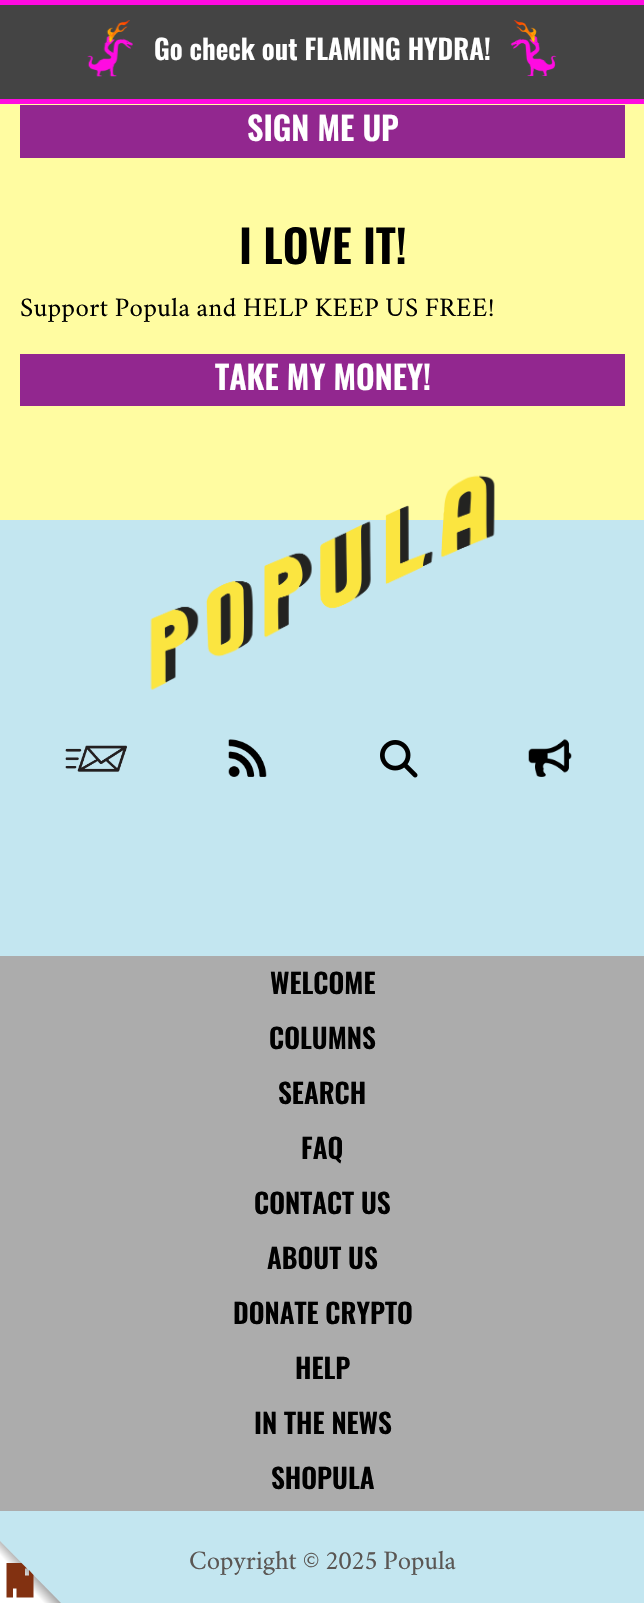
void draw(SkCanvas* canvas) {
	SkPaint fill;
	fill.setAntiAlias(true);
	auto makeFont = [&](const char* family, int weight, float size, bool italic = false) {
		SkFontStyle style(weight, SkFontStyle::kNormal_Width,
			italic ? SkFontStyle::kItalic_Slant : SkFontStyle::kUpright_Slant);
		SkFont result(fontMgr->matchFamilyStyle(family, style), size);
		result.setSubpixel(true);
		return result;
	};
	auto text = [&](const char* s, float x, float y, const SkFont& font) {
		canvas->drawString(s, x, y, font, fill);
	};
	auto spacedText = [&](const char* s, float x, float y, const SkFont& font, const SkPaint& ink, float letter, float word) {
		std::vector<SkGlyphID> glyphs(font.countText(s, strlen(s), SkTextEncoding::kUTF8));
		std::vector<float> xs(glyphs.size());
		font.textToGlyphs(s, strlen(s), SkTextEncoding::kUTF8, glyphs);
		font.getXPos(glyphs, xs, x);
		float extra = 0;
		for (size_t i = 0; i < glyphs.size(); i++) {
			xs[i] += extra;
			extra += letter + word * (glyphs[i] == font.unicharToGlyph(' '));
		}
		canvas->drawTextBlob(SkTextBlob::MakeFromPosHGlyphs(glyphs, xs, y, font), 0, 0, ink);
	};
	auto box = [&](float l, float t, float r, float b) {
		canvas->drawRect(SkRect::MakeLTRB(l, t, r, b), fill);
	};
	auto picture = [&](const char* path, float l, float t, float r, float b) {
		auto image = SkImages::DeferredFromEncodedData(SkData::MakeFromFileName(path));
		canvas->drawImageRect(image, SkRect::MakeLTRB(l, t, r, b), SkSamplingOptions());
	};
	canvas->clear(0xFFFFFCA1);
	fill.setColor(0xFF444444);
	box(0, 5, 644, 99);
	fill.setColor(0xFFFF0BE1);
	box(0, 0, 644, 5);
	box(0, 99, 644, 104);
	picture("image0.png", 87, 20, 133, 77);
	picture("image1.png", 510, 20, 557, 76);
	fill.setColor(0xFF92278F);
	box(20, 105, 625, 158);
	box(20, 354, 625, 406);
	fill.setColor(0xFFC3E6F0);
	box(0, 520, 644, 1603);
	picture("image2.png", 150, 475, 495, 690);
	picture("image3.png", 65, 745, 127, 772);
	picture("image4.png", 228, 739, 267, 777);
	picture("image5.png", 380, 740, 418, 778);
	picture("image6.png", 528, 739, 572, 777);
	fill.setColor(0xFFACACAC);
	box(0, 956, 644, 1511);
	fill.setColor(0xFFFFFFFF);
	canvas->drawPath(SkPathBuilder().moveTo(0, 1541).lineTo(0, 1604).lineTo(62, 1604).close().detach(), fill);
	{
		const SkColor colors[] = {0x66000000, 0x00000000};
		const float stops[] = {0, 1};
		const SkPoint ends[] = {{80, 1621}, {69, 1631}};
		fill.setShader(SkGradientShader::MakeLinear(ends, colors, stops, 2, SkTileMode::kClamp));
		fill.setAlpha(255);
	}
	canvas->drawPath(SkPathBuilder().moveTo(0, 1541).lineTo(62, 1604).lineTo(41, 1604).lineTo(0, 1562).close().detach(), fill);
	canvas->save();
	canvas->clipRect(SkRect::MakeLTRB(6, 1563, 34, 1598));
	fill.setShader(nullptr);
	fill.setColor(0xFF823111);
	canvas->drawPath(SkPathBuilder().moveTo(6.5f, 1562.5f).lineTo(6.5f, 1597.5f).lineTo(13, 1597.5f).lineTo(13, 1588.5f).lineTo(16.5f, 1588.5f).lineTo(16.5f, 1597.5f).lineTo(33.5f, 1597.5f).lineTo(33.5f, 1575).lineTo(29, 1570).lineTo(29, 1575.5f).lineTo(25, 1575.5f).lineTo(25, 1568.5f).lineTo(27, 1568.5f).lineTo(21, 1562.5f).close().detach(), fill);
	canvas->restore();
	auto font1 = makeFont("Oswald", 600, 27.5f);
	fill.setColor(0xFFFFFFFF);
	text("Go check out FLAMING HYDRA!", 154, 60, font1);
	auto font2 = makeFont("Oswald", 600, 32.5f);
	text("SIGN ME UP", 247, 141, font2);
	auto font3 = makeFont("Oswald", 600, 45);
	fill.setColor(0xFF000000);
	text("I LOVE IT!", 239, 264, font3);
	auto font4 = makeFont("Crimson", 400, 26.25f);
	spacedText("Support Popula and HELP KEEP US FREE!", 20, 316, font4, fill, 0.5f, 0);
	fill.setColor(0xFFFFFFFF);
	text("TAKE MY MONEY!", 215, 390, font2);
	fill.setColor(0xFF000000);
	text("WELCOME", 270, 994, font1);
	text("COLUMNS", 269, 1049, font1);
	text("SEARCH", 278, 1104, font1);
	text("FAQ", 301, 1159, font1);
	text("CONTACT US", 254, 1214, font1);
	text("ABOUT US", 267, 1269, font1);
	text("DONATE CRYPTO", 233, 1324, font1);
	text("HELP", 295, 1379, font1);
	text("IN THE NEWS", 254, 1434, font1);
	text("SHOPULA", 271, 1489, font1);
	fill.setColor(0xFF5A5653);
	text("Copyright © 2025 Popula", 189, 1569, font4);
}
